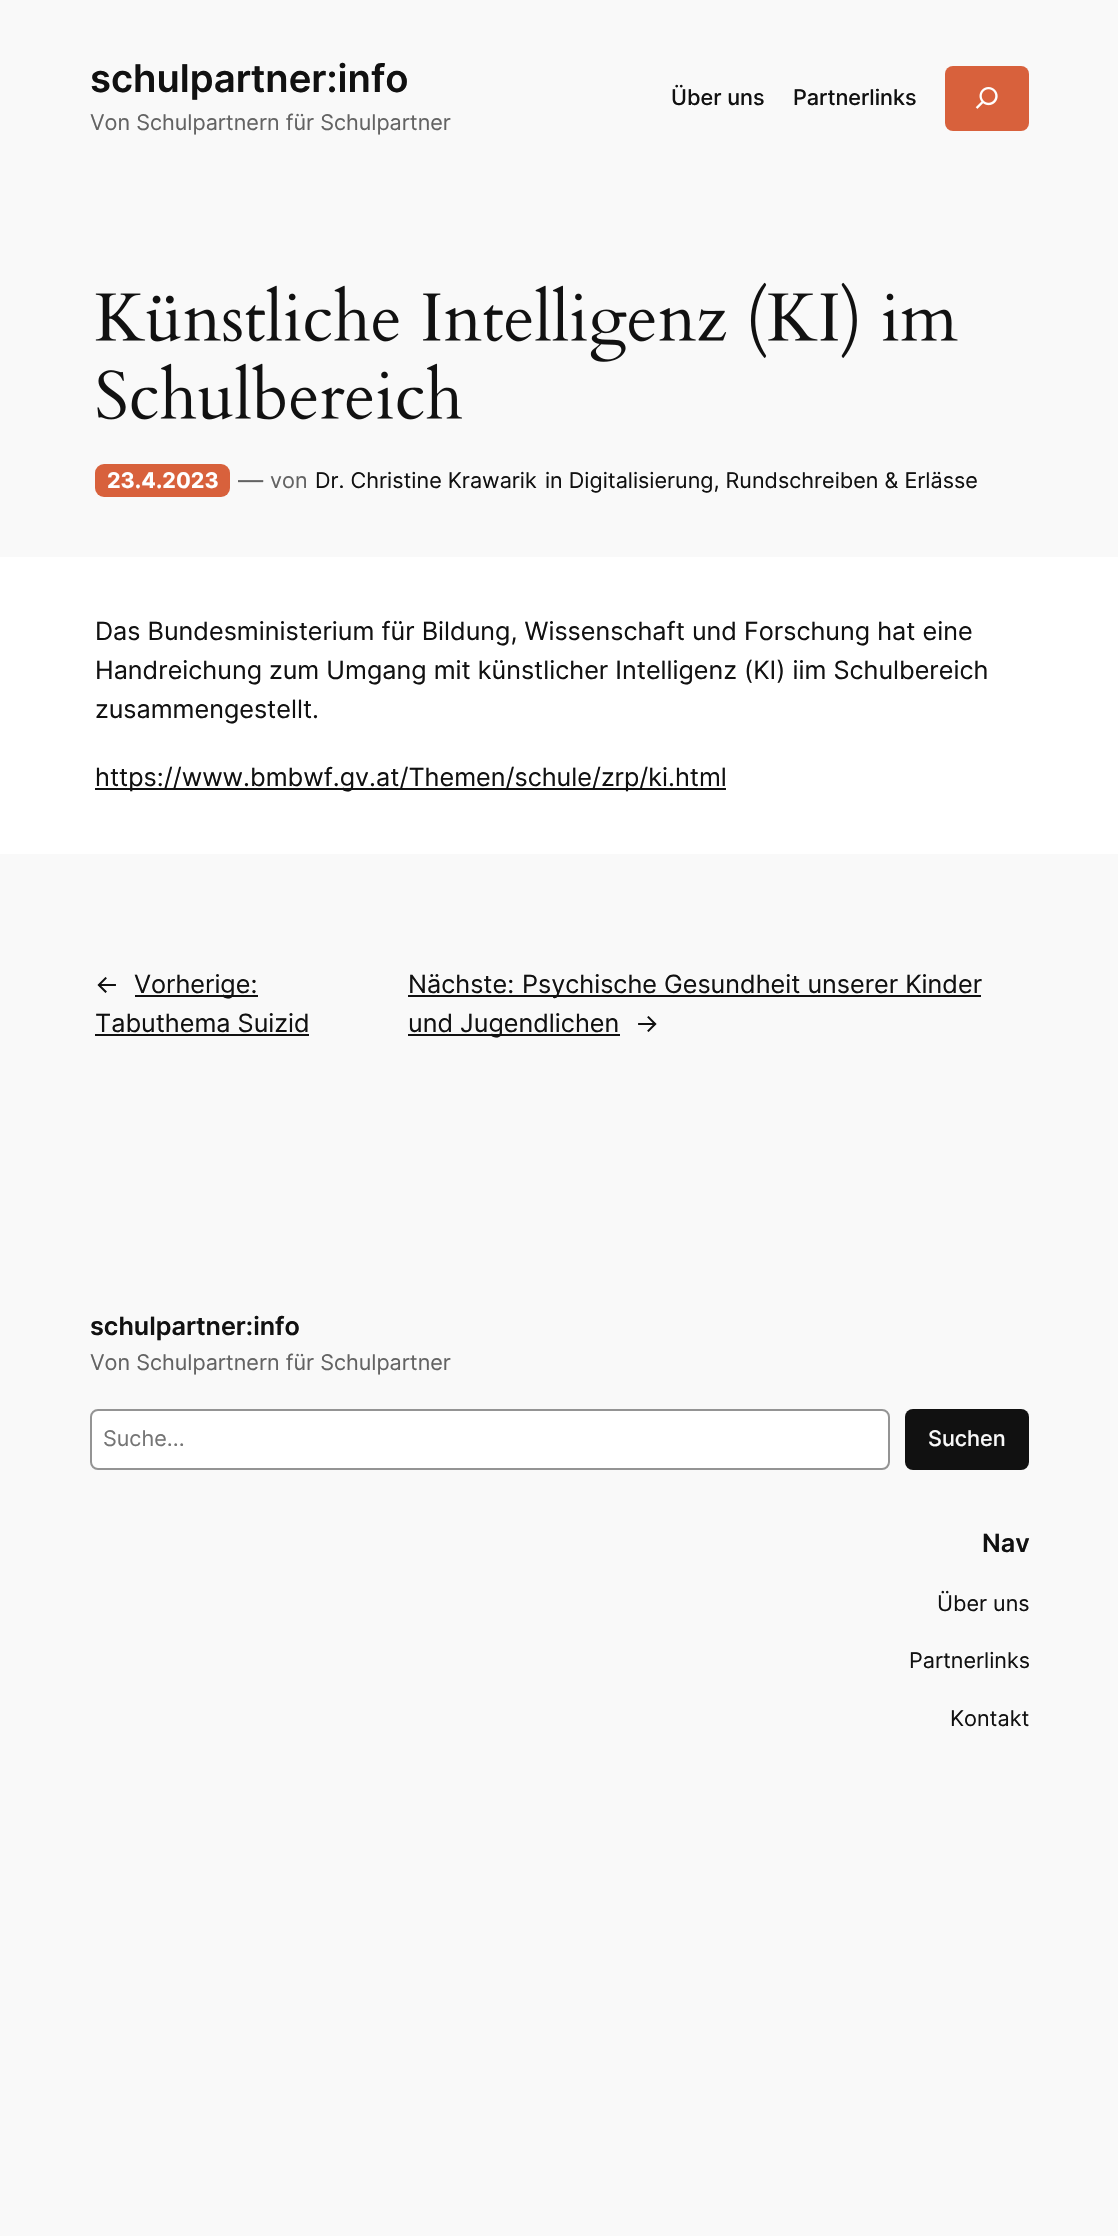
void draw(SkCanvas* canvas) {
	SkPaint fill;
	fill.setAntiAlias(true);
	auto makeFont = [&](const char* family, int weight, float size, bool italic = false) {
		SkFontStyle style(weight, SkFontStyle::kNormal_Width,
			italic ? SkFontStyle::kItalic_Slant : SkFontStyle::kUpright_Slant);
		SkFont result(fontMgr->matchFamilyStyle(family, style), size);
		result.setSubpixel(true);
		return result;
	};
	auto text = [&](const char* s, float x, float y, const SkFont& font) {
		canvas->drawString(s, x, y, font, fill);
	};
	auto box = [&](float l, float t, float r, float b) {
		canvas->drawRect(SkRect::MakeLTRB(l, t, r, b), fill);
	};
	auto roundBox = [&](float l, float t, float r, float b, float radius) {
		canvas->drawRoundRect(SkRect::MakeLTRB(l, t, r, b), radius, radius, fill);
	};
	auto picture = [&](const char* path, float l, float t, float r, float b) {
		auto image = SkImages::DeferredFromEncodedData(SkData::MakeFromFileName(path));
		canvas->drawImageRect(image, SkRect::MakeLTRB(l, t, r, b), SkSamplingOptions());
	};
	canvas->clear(0xFFF9F9F9);
	fill.setColor(0xFFD8613C);
	roundBox(945, 66, 1029, 131, 8);
	picture("image0.png", 975, 87, 998, 109);
	picture("image1.png", 95, 282, 958, 362);
	picture("image2.png", 97, 363, 462, 420);
	roundBox(95, 464, 230, 497, 9);
	fill.setColor(0xFFFFFFFF);
	box(0, 557, 1118, 854);
	fill.setColor(0xFF111111);
	box(95, 788, 726, 790);
	box(135, 995, 258, 997);
	box(95, 1034, 309, 1036);
	box(408, 995, 981, 997);
	box(408, 1034, 620, 1036);
	fill.setColor(0xFFFFFFFF);
	canvas->drawRoundRect(SkRect::MakeLTRB(91, 1410, 889, 1469), 7, 7, fill);
	fill.setStyle(SkPaint::kStroke_Style);
	fill.setStrokeWidth(2);
	fill.setColor(0xFF949494);
	canvas->drawRoundRect(SkRect::MakeLTRB(91, 1410, 889, 1469), 7, 7, fill);
	fill.setStyle(SkPaint::kFill_Style);
	fill.setColor(0xFF111111);
	roundBox(905, 1409, 1029, 1470, 8);
	auto font1 = makeFont("Inter", 600, 38.25f);
	text("schulpartner:info", 90, 92, font1);
	auto font2 = makeFont("Inter", 400, 21.6f);
	fill.setColor(0xFF636363);
	text("Von Schulpartnern für Schulpartner", 90, 130, font2);
	auto font3 = makeFont("Inter", 500, 21.6f);
	fill.setColor(0xFF111111);
	text("Über uns", 671, 105, font3);
	text("Partnerlinks", 793, 105, font3);
	auto font4 = makeFont("Inter", 700, 21.6f);
	fill.setColor(0xFFFFFFFF);
	text("23.4.2023", 107, 488, font4);
	auto font5 = makeFont("Inter", 400, 25.2f);
	fill.setColor(0xFF636363);
	text("—", 238, 489, font5);
	text("von", 270, 488, font2);
	fill.setColor(0xFF111111);
	text("Dr. Christine Krawarik", 315, 488, font2);
	text("in Digitalisierung, Rundschreiben & Erlässe", 545, 488, font2);
	text("Das Bundesministerium für Bildung, Wissenschaft und Forschung hat eine", 95, 640, font5);
	text("Handreichung zum Umgang mit künstlicher Intelligenz (KI) iim Schulbereich", 95, 679, font5);
	text("zusammengestellt.", 95, 718, font5);
	text("https://www.bmbwf.gv.at/Themen/schule/zrp/ki.html", 95, 786, font5);
	text("←", 95, 993, font5);
	text("Vorherige:", 134, 993, font5);
	text("Tabuthema Suizid", 95, 1032, font5);
	text("Nächste:", 408, 993, font5);
	text("Psychische Gesundheit unserer Kinder", 522, 993, font5);
	text("und Jugendlichen", 408, 1032, font5);
	text("→", 635, 1032, font5);
	auto font6 = makeFont("Inter", 600, 25.2f);
	text("schulpartner:info", 90, 1335, font6);
	fill.setColor(0xFF636363);
	text("Von Schulpartnern für Schulpartner", 90, 1370, font2);
	fill.setColor(0xFF757575);
	text("Suche...", 103, 1446, font2);
	fill.setColor(0xFFF9F9F9);
	text("Suchen", 928, 1446, font3);
	fill.setColor(0xFF111111);
	text("Nav", 982, 1552, font6);
	text("Über uns", 937, 1611, font2);
	text("Partnerlinks", 909, 1668, font2);
	text("Kontakt", 950, 1726, font2);
}
